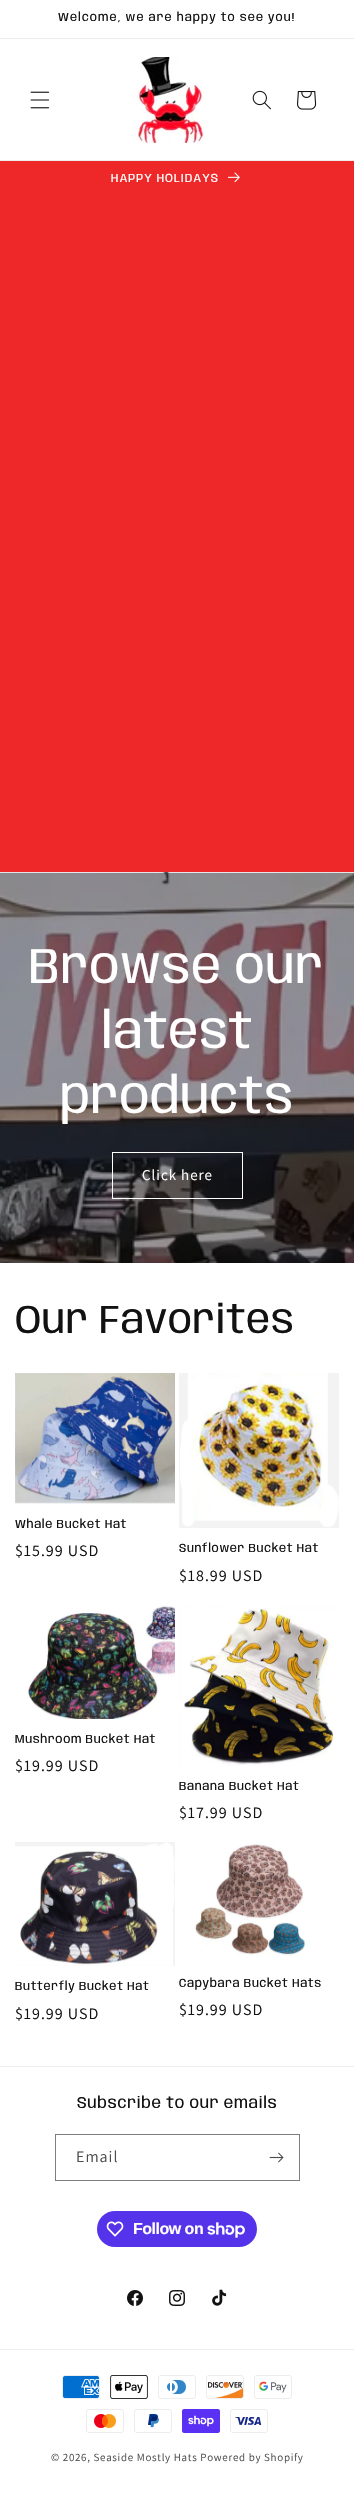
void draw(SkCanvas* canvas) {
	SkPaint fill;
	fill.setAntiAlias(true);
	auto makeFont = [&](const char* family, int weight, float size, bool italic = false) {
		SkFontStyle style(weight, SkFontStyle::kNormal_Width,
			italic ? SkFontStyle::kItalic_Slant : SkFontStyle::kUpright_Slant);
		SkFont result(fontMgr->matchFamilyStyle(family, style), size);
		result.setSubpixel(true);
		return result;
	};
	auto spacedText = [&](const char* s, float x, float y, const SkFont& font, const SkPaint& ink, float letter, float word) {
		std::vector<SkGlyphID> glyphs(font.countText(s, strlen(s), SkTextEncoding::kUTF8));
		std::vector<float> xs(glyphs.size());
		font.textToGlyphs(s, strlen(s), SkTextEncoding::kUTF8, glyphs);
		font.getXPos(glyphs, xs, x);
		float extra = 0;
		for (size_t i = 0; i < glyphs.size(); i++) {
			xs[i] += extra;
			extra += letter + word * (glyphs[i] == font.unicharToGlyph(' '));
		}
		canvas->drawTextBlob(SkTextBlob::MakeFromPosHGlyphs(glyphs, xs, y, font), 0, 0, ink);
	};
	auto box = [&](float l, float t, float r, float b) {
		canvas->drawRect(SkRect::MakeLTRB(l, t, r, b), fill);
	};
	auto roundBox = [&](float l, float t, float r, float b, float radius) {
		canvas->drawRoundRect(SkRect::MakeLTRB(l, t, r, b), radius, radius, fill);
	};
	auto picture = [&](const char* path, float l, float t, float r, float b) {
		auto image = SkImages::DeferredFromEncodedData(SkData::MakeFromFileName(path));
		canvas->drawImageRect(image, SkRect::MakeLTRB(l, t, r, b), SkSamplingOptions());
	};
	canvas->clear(0xFFFFFFFF);
	fill.setColor(0xFFECECEC);
	box(0, 38, 354, 39);
	box(0, 160, 354, 161);
	picture("image0.png", 30, 91, 50, 109);
	picture("image1.png", 133, 57, 205, 143);
	picture("image2.png", 252, 90, 271, 110);
	picture("image3.png", 297, 91, 317, 110);
	fill.setColor(0xFFEE2828);
	box(0, 161, 354, 872);
	picture("image4.png", 228, 172, 240, 183);
	picture("image5.png", 0, 872, 354, 1263);
	fill.setStyle(SkPaint::kStroke_Style);
	fill.setStrokeWidth(1);
	fill.setColor(0xFFFFFFFF);
	canvas->drawRect(SkRect::MakeLTRB(112.5f, 1152.5f, 242.5f, 1198.5f), fill);
	picture("image6.png", 15, 1373, 175, 1504);
	fill.setStyle(SkPaint::kFill_Style);
	fill.setColor(0xFFF3F3F3);
	box(179, 1373, 339, 1528);
	picture("image7.png", 180, 1373, 339, 1527);
	picture("image8.png", 15, 1605, 175, 1719);
	picture("image9.png", 179, 1605, 339, 1766);
	box(15, 1842, 175, 1966);
	picture("image10.png", 15, 1842, 175, 1966);
	picture("image11.png", 179, 1842, 339, 1963);
	fill.setColor(0xFFECECEC);
	box(0, 2066, 354, 2067);
	fill.setStyle(SkPaint::kStroke_Style);
	fill.setColor(0xFF7D7D7D);
	canvas->drawRect(SkRect::MakeLTRB(55.5f, 2134.5f, 299.5f, 2180.5f), fill);
	picture("image12.png", 269, 2152, 284, 2163);
	fill.setStyle(SkPaint::kFill_Style);
	fill.setColor(0xFF5433EB);
	roundBox(97, 2211, 257, 2247, 18);
	picture("image13.png", 106, 2221, 124, 2237);
	picture("image14.png", 207, 2222, 245, 2238);
	picture("image15.png", 127, 2290, 143, 2306);
	picture("image16.png", 169, 2290, 185, 2306);
	picture("image17.png", 212, 2289, 227, 2306);
	fill.setColor(0xFFECECEC);
	box(0, 2349, 354, 2350);
	picture("image18.png", 62, 2375, 100, 2399);
	picture("image19.png", 110, 2375, 148, 2399);
	picture("image20.png", 158, 2375, 196, 2399);
	picture("image21.png", 206, 2375, 244, 2399);
	picture("image22.png", 254, 2375, 292, 2399);
	picture("image23.png", 86, 2409, 124, 2433);
	picture("image24.png", 134, 2409, 172, 2433);
	picture("image25.png", 182, 2409, 220, 2433);
	picture("image26.png", 230, 2409, 268, 2433);
	auto font1 = makeFont("Anybody", 400, 12);
	fill.setColor(0xFF121212);
	spacedText("Welcome, we are happy to see you!", 58, 21, font1, fill, 1, 0);
	fill.setColor(0xFFFFFFFF);
	spacedText("HAPPY HOLIDAYS", 111, 182, font1, fill, 1, 0);
	auto font2 = makeFont("Anybody", 400, 50);
	spacedText("Browse our", 29, 983, font2, fill, 0.6f, 0);
	spacedText("latest", 101, 1048, font2, fill, 0.6f, 0);
	spacedText("products", 60, 1113, font2, fill, 0.6f, 0);
	auto font3 = makeFont("Assistant", 400, 15);
	spacedText("Click here", 142, 1180, font3, fill, 1, 0);
	auto font4 = makeFont("Anybody", 400, 40);
	fill.setColor(0xFF121212);
	spacedText("Our Favorites", 15, 1333, font4, fill, 0.6f, 0);
	spacedText("Whale Bucket Hat", 15, 1528, font1, fill, 0.6f, 0);
	auto font5 = makeFont("Assistant", 400, 16);
	spacedText("$15.99 USD", 15, 1556, font5, fill, 1, 0);
	spacedText("Sunflower Bucket Hat", 179, 1552, font1, fill, 0.6f, 0);
	spacedText("$18.99 USD", 179, 1581, font5, fill, 1, 0);
	spacedText("Mushroom Bucket Hat", 15, 1743, font1, fill, 0.6f, 0);
	spacedText("$19.99 USD", 15, 1771, font5, fill, 1, 0);
	spacedText("Banana Bucket Hat", 179, 1790, font1, fill, 0.6f, 0);
	spacedText("$17.99 USD", 179, 1818, font5, fill, 1, 0);
	spacedText("Butterfly Bucket Hat", 15, 1990, font1, fill, 0.6f, 0);
	spacedText("$19.99 USD", 15, 2019, font5, fill, 1, 0);
	spacedText("Capybara Bucket Hats", 179, 1987, font1, fill, 0.6f, 0);
	spacedText("$19.99 USD", 179, 2015, font5, fill, 1, 0);
	auto font6 = makeFont("Anybody", 400, 16);
	spacedText("Subscribe to our emails", 77, 2108, font6, fill, 0.6f, 0);
	fill.setColor(0xFF4D4D4D);
	spacedText("Email", 76, 2162, font5, fill, 1, 0);
	auto font7 = makeFont("Liberation Sans", 700, 16);
	fill.setColor(0xFFFFFFFF);
	spacedText("Follow on", 133, 2234, font7, fill, -0.5f, 0);
	auto font8 = makeFont("Assistant", 400, 11);
	fill.setColor(0xFF4D4D4D);
	spacedText("© 2026, Seaside Mostly Hats Powered by Shopify", 51, 2461, font8, fill, 0.7f, 0);
}
